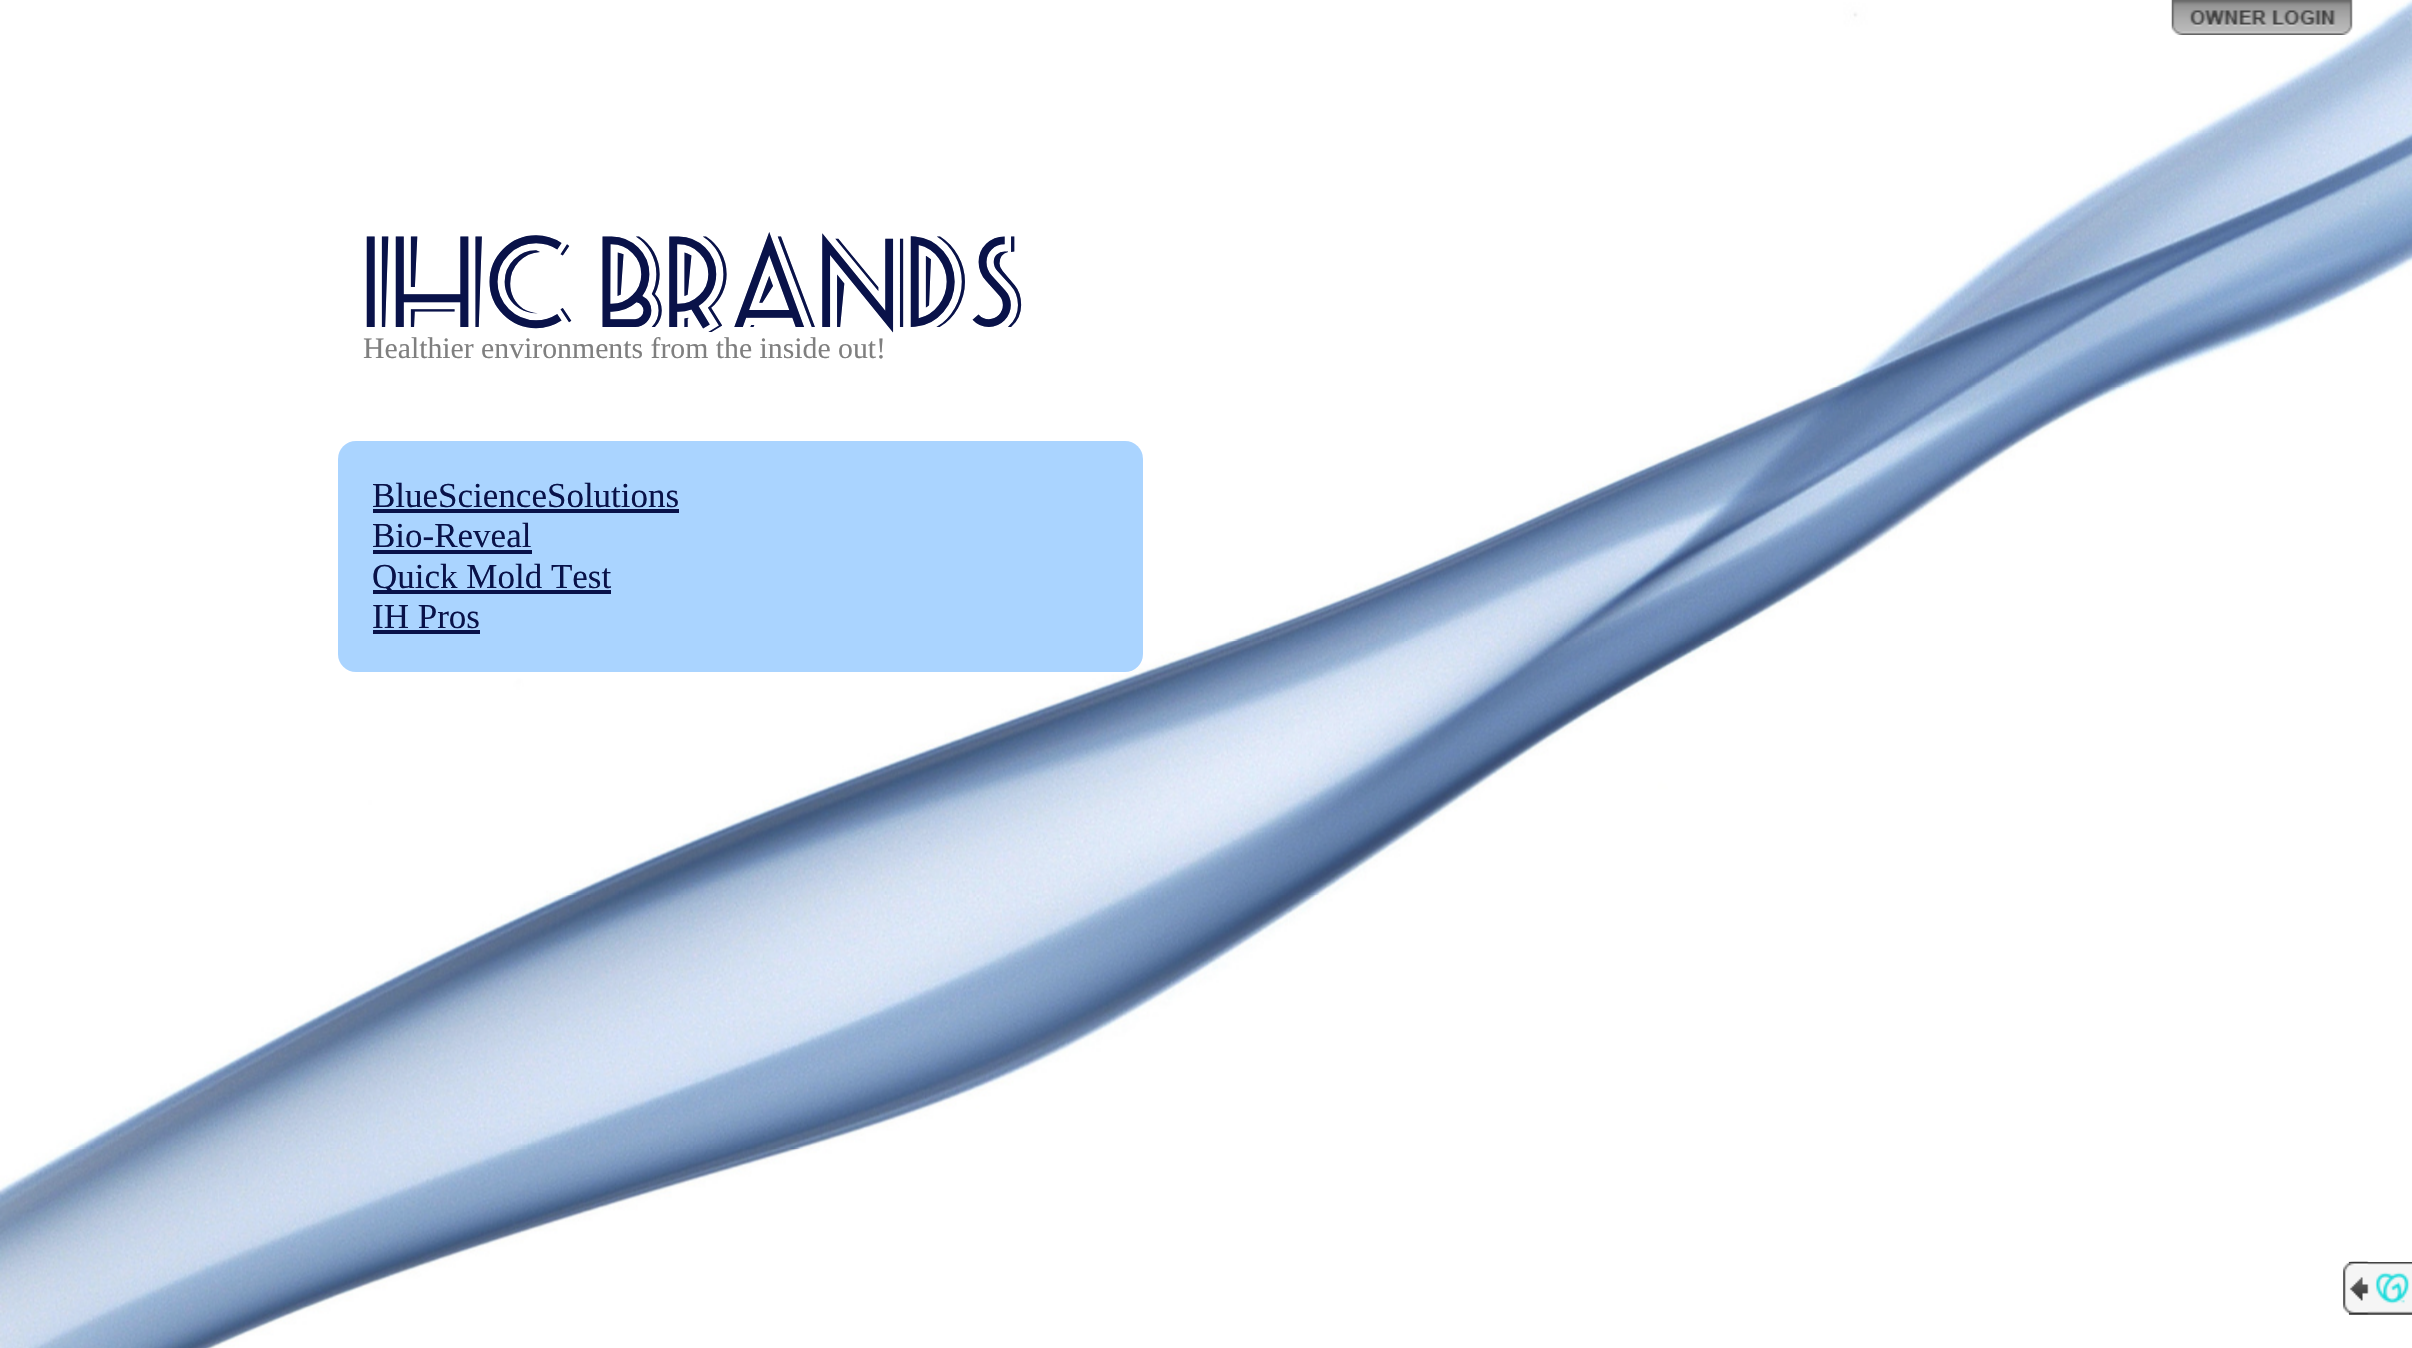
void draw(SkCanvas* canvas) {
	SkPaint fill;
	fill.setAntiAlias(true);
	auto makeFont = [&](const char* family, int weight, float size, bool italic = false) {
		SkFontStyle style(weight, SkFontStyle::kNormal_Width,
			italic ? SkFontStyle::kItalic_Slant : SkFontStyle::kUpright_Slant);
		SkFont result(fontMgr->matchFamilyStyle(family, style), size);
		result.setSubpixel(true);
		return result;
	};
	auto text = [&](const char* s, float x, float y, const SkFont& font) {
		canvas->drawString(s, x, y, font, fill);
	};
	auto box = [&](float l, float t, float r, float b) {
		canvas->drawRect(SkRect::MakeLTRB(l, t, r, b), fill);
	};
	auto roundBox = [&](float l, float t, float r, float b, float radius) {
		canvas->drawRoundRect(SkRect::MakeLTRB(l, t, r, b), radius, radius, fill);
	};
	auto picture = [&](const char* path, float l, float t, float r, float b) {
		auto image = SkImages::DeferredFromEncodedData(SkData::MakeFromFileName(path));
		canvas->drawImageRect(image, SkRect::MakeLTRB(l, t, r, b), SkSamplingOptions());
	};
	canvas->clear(0xFFFFFFFF);
	picture("image0.png", 0, 0, 2412, 1348);
	picture("image1.png", 2171, 0, 2353, 35);
	fill.setColor(0xFFAAD4FF);
	roundBox(338, 441, 1143, 672, 18);
	fill.setColor(0xFF091249);
	box(373, 509, 679, 513);
	box(373, 550, 532, 554);
	box(373, 590, 611, 594);
	box(373, 630, 480, 634);
	picture("image2.png", 2349, 1262, 2412, 1315);
	picture("image3.png", 2349, 1313, 2412, 1315);
	picture("image4.png", 2343, 1261, 2369, 1315);
	picture("image5.png", 2375, 1272, 2410, 1304);
	auto font1 = makeFont("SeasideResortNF", 400, 105);
	text("IHC Brands", 363, 327, font1);
	auto font2 = makeFont("Liberation Serif", 400, 29.75f);
	fill.setColor(0xFF7F7F7F);
	text("Healthier environments from the inside out!", 363, 358, font2);
	auto font3 = makeFont("Liberation Serif", 400, 35);
	fill.setColor(0xFF091249);
	text("BlueScienceSolutions", 372, 507, font3);
	text("Bio-Reveal", 372, 547, font3);
	text("Quick Mold Test", 372, 588, font3);
	text("IH Pros", 372, 628, font3);
}
